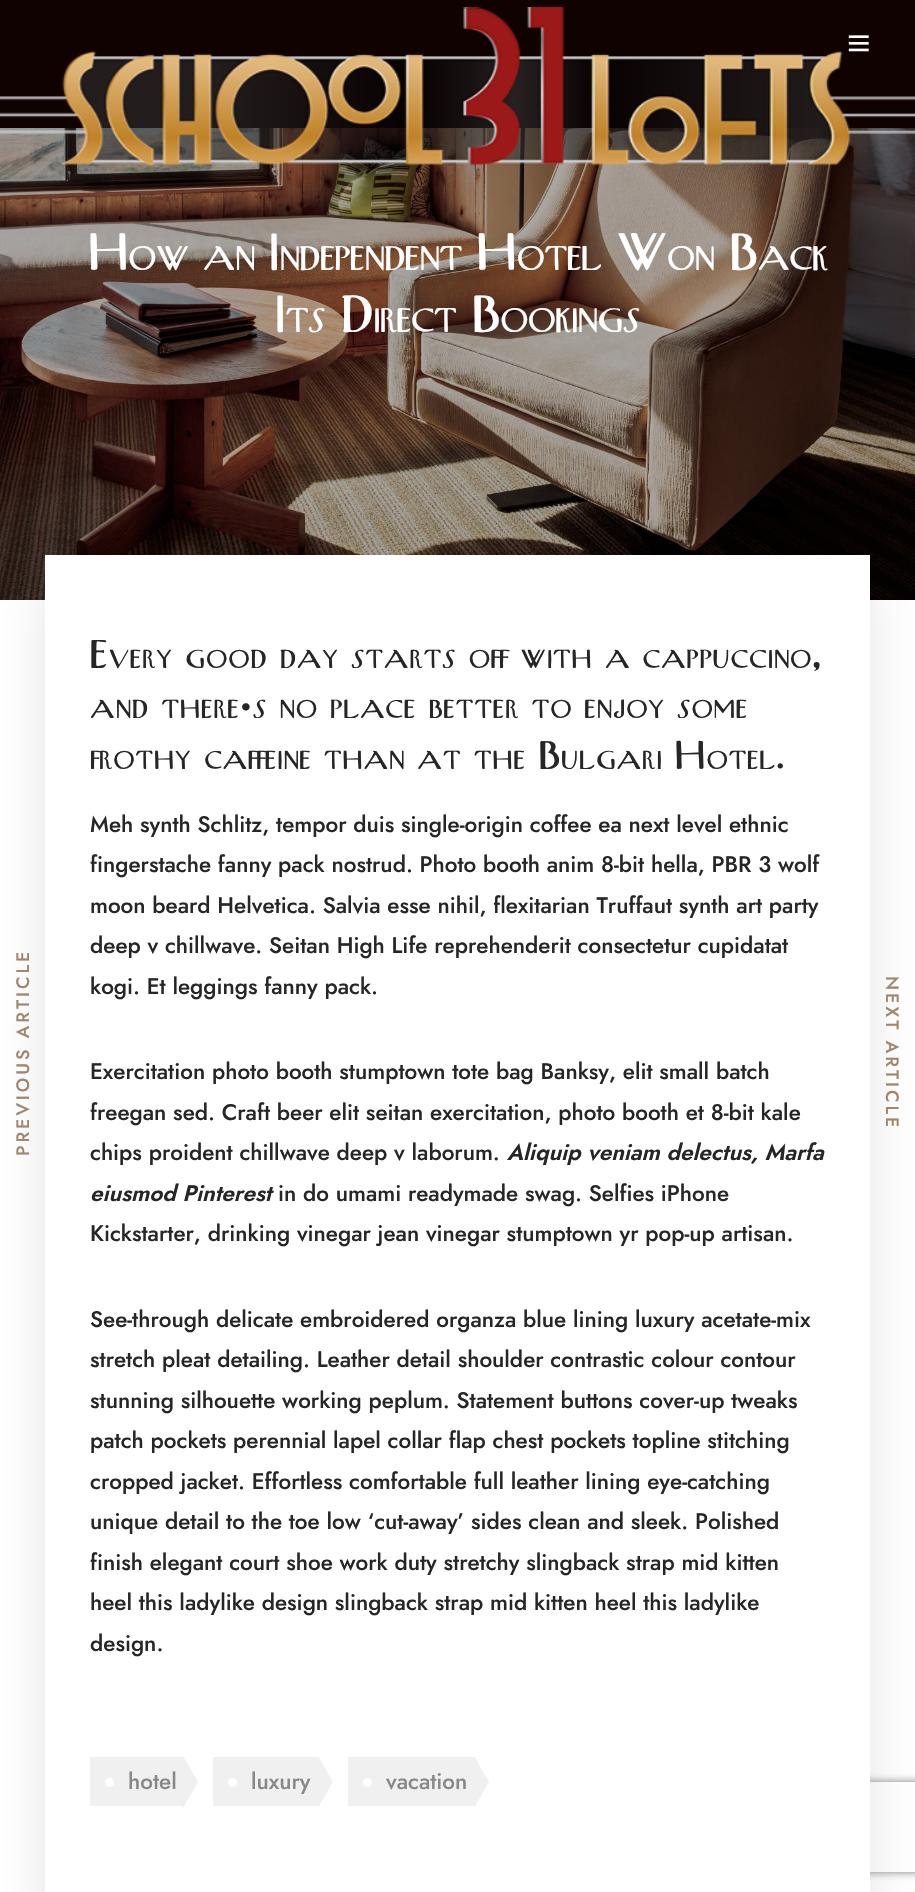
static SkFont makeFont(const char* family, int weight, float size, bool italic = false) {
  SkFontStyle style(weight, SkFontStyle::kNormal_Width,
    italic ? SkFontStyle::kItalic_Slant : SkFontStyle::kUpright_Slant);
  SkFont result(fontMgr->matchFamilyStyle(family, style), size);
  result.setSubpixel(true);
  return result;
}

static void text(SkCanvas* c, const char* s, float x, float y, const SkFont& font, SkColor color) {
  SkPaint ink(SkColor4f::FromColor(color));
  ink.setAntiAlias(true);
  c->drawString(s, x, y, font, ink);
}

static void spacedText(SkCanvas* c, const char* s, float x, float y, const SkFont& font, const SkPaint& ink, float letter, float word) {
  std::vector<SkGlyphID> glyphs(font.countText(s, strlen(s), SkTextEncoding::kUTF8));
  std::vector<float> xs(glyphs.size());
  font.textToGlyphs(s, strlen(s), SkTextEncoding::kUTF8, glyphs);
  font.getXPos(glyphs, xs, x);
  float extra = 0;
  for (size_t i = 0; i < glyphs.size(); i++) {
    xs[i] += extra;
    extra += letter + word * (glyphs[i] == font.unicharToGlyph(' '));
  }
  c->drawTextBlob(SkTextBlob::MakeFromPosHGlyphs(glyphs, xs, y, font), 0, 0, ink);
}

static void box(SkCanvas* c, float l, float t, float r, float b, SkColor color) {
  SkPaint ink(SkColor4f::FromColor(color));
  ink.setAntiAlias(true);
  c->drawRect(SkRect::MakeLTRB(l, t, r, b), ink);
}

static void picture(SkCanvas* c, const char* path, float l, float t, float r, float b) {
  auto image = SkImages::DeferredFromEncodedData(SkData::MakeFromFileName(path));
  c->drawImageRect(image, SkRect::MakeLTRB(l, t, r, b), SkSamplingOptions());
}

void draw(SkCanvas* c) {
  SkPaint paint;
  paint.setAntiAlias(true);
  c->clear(0xffffffff);
  box(c, 0, 0, 915, 128, 0xff110202);
  picture(c, "img_03.png", 0, 128, 915, 600);
  picture(c, "img_01.png", 0, 7, 915, 166);
  picture(c, "img_02.png", 848, 35, 869, 52);
  SkFont face1 = makeFont("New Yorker", 500, 51);
  paint.setColor(0xffffffff);
  spacedText(c, "How an Independent Hotel Won Back", 88, 270, face1, paint, -1.5f, 0);
  spacedText(c, "Its Direct Bookings", 275, 332, face1, paint, -1.5f, 0);
  paint.setColor(0x1a010101);
  paint.setMaskFilter(SkMaskFilter::MakeBlur(kNormal_SkBlurStyle, 22.5f));
  c->drawRect(SkRect::MakeLTRB(45, 585, 870, 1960), paint);
  paint.setMaskFilter(nullptr);
  c->save();
  c->clipPath(SkPathBuilder(SkPathFillType::kEvenOdd).moveTo(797, 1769).lineTo(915, 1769).lineTo(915, 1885).lineTo(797, 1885).close().moveTo(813, 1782).lineTo(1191, 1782).cubicTo(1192.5f, 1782, 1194, 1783.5f, 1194, 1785).lineTo(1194, 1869).cubicTo(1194, 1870.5f, 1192.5f, 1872, 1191, 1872).lineTo(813, 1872).cubicTo(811.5f, 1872, 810, 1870.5f, 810, 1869).lineTo(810, 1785).cubicTo(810, 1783.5f, 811.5f, 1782, 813, 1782).close().detach(), true);
  paint.setColor(0xff808080);
  paint.setMaskFilter(SkMaskFilter::MakeBlur(kNormal_SkBlurStyle, 4));
  c->drawRoundRect(SkRect::MakeLTRB(810, 1782, 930, 1872), 3, 3, paint);
  paint.setMaskFilter(nullptr);
  c->restore();
  box(c, 45, 555, 870, 1892, 0xffffffff);
  SkFont face2 = makeFont("Jost", 500, 18);
  paint.setColor(0xff9e876d);
  c->save();
  c->rotate(-90, 29, 1156);
  spacedText(c, "PREVIOUS ARTICLE", 29, 1156, face2, paint, 3, 0);
  c->restore();
  SkFont face3 = makeFont("New Yorker", 500, 39);
  text(c, "Every good day starts off with a cappuccino,", 90, 668, face3, 0xff262626);
  text(c, "and there’s no place better to enjoy some", 90, 718, face3, 0xff262626);
  text(c, "frothy caffeine than at the Bulgari Hotel.", 90, 769, face3, 0xff262626);
  SkFont face4 = makeFont("Jost", 500, 22.5f);
  text(c, "Meh synth Schlitz, tempor duis single-origin coffee ea next level ethnic", 90, 832, face4, 0xff262626);
  text(c, "fingerstache fanny pack nostrud. Photo booth anim 8-bit hella, PBR 3 wolf", 90, 872, face4, 0xff262626);
  text(c, "moon beard Helvetica. Salvia esse nihil, flexitarian Truffaut synth art party", 90, 913, face4, 0xff262626);
  text(c, "deep v chillwave. Seitan High Life reprehenderit consectetur cupidatat", 90, 953, face4, 0xff262626);
  text(c, "kogi. Et leggings fanny pack.", 90, 994, face4, 0xff262626);
  text(c, "Exercitation photo booth stumptown tote bag Banksy, elit small batch", 90, 1079, face4, 0xff262626);
  text(c, "freegan sed. Craft beer elit seitan exercitation, photo booth et 8-bit kale", 90, 1120, face4, 0xff262626);
  text(c, "chips proident chillwave deep v laborum.", 90, 1160, face4, 0xff262626);
  SkFont face5 = makeFont("Jost", 600, 22.5f, true);
  text(c, "Aliquip veniam delectus, Marfa", 507, 1160, face5, 0xff262626);
  text(c, "eiusmod Pinterest", 90, 1201, face5, 0xff262626);
  text(c, "in do umami readymade swag. Selfies iPhone", 278, 1201, face4, 0xff262626);
  text(c, "Kickstarter, drinking vinegar jean vinegar stumptown yr pop-up artisan.", 90, 1241, face4, 0xff262626);
  text(c, "See-through delicate embroidered organza blue lining luxury acetate-mix", 90, 1327, face4, 0xff262626);
  text(c, "stretch pleat detailing. Leather detail shoulder contrastic colour contour", 90, 1367, face4, 0xff262626);
  text(c, "stunning silhouette working peplum. Statement buttons cover-up tweaks", 90, 1408, face4, 0xff262626);
  text(c, "patch pockets perennial lapel collar flap chest pockets topline stitching", 90, 1448, face4, 0xff262626);
  text(c, "cropped jacket. Effortless comfortable full leather lining eye-catching", 90, 1489, face4, 0xff262626);
  text(c, "unique detail to the toe low ‘cut-away’ sides clean and sleek. Polished", 90, 1529, face4, 0xff262626);
  text(c, "finish elegant court shoe work duty stretchy slingback strap mid kitten", 90, 1570, face4, 0xff262626);
  text(c, "heel this ladylike design slingback strap mid kitten heel this ladylike", 90, 1610, face4, 0xff262626);
  text(c, "design.", 90, 1651, face4, 0xff262626);
  box(c, 90, 1757, 183, 1806, 0xfff0f0f0);
  paint.setColor(0xffffffff);
  c->drawCircle(109.5f, 1782.5f, 4.5f, paint);
  text(c, "hotel", 128, 1789, face4, 0xff888888);
  paint.setColor(0xfff0f0f0);
  c->drawPath(SkPathBuilder().moveTo(183, 1808).lineTo(183, 1756).lineTo(198, 1782).close().detach(), paint);
  box(c, 213, 1757, 318, 1806, 0xfff0f0f0);
  paint.setColor(0xffffffff);
  c->drawCircle(232.5f, 1782.5f, 4.5f, paint);
  text(c, "luxury", 251, 1789, face4, 0xff888888);
  paint.setColor(0xfff0f0f0);
  c->drawPath(SkPathBuilder().moveTo(318, 1808).lineTo(318, 1756).lineTo(333, 1782).close().detach(), paint);
  box(c, 348, 1757, 474, 1806, 0xfff0f0f0);
  paint.setColor(0xffffffff);
  c->drawCircle(367.5f, 1782.5f, 4.5f, paint);
  text(c, "vacation", 386, 1789, face4, 0xff888888);
  paint.setColor(0xfff0f0f0);
  c->drawPath(SkPathBuilder().moveTo(474, 1808).lineTo(474, 1756).lineTo(489, 1782).close().detach(), paint);
  paint.setColor(0xff9e876d);
  c->save();
  c->rotate(90, 886, 976);
  spacedText(c, "NEXT ARTICLE", 886, 976, face2, paint, 3, 0);
  c->restore();
}
